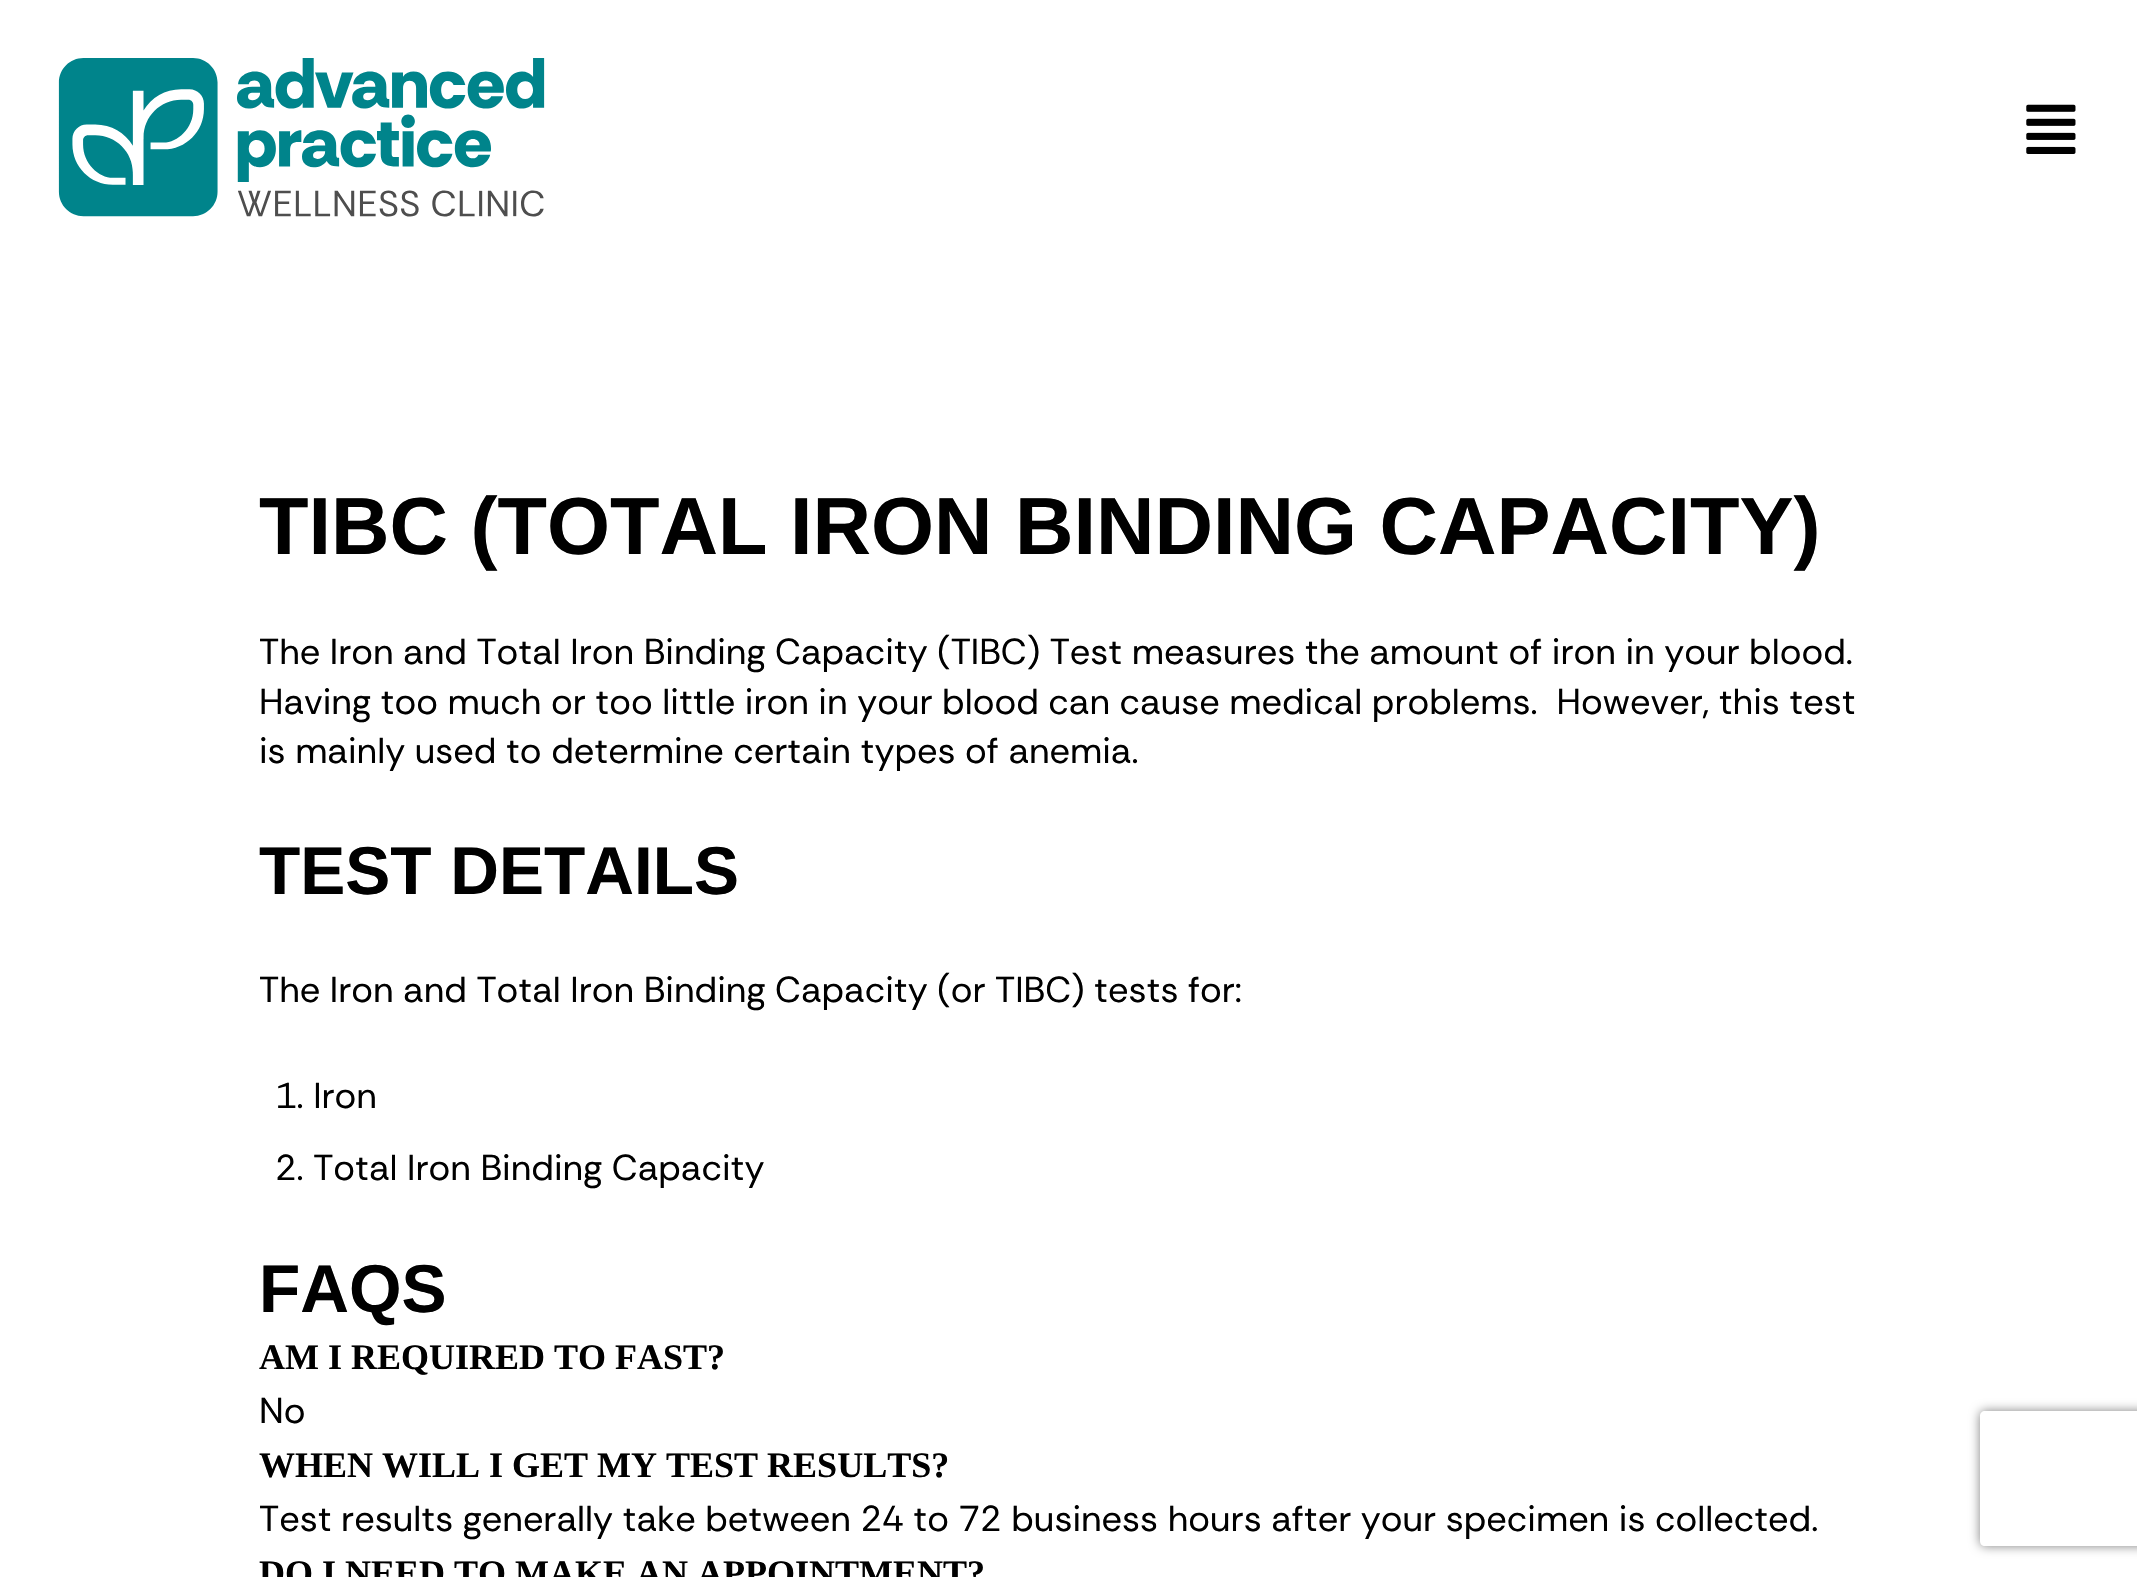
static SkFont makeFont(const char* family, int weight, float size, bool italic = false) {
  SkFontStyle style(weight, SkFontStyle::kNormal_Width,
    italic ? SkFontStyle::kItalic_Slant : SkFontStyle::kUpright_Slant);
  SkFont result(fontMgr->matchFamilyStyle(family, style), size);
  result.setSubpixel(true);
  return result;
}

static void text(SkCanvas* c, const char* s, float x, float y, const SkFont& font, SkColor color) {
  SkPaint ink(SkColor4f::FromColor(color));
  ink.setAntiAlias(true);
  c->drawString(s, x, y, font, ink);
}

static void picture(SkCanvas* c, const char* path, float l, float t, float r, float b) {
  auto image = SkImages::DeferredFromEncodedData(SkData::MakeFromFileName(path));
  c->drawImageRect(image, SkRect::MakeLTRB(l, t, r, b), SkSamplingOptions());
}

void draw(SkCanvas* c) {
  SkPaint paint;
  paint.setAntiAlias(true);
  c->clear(0xffffffff);
  picture(c, "img_01.png", 58, 58, 545, 217);
  picture(c, "img_02.png", 2026, 104, 2076, 154);
  SkFont face1 = makeFont("Liberation Sans", 700, 81);
  text(c, "TIBC (TOTAL IRON BINDING CAPACITY)", 259, 554, face1, 0xff000000);
  SkFont face2 = makeFont("Rethink Sans", 100, 36);
  text(c, "The Iron and Total Iron Binding Capacity (TIBC) Test measures the amount of iron in your blood.", 259, 664, face2, 0xff000000);
  text(c, "Having too much or too little iron in your blood can cause medical problems.  However, this test", 259, 714, face2, 0xff000000);
  text(c, "is mainly used to determine certain types of anemia.", 259, 763, face2, 0xff000000);
  SkFont face3 = makeFont("Liberation Sans", 700, 67.5f);
  text(c, "TEST DETAILS", 259, 894, face3, 0xff000000);
  text(c, "The Iron and Total Iron Binding Capacity (or TIBC) tests for:", 259, 1002, face2, 0xff000000);
  text(c, "1. Iron", 275, 1108, face2, 0xff000000);
  text(c, "2. Total Iron Binding Capacity", 275, 1180, face2, 0xff000000);
  text(c, "FAQS", 259, 1312, face3, 0xff000000);
  SkFont face4 = makeFont("Liberation Serif", 700, 36);
  text(c, "AM I REQUIRED TO FAST?", 259, 1369, face4, 0xff000000);
  text(c, "No", 259, 1423, face2, 0xff000000);
  text(c, "WHEN WILL I GET MY TEST RESULTS?", 259, 1477, face4, 0xff000000);
  text(c, "Test results generally take between 24 to 72 business hours after your specimen is collected.", 259, 1531, face2, 0xff000000);
  text(c, "DO I NEED TO MAKE AN APPOINTMENT?", 259, 1585, face4, 0xff000000);
  c->save();
  c->clipPath(SkPathBuilder(SkPathFillType::kEvenOdd).moveTo(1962, 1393).lineTo(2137, 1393).lineTo(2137, 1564).lineTo(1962, 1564).close().moveTo(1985, 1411).lineTo(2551, 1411).cubicTo(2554, 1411, 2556, 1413, 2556, 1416).lineTo(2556, 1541).cubicTo(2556, 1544, 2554, 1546, 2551, 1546).lineTo(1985, 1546).cubicTo(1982, 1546, 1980, 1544, 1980, 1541).lineTo(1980, 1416).cubicTo(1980, 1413, 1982, 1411, 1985, 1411).close().detach(), true);
  paint.setColor(0xff808080);
  paint.setMaskFilter(SkMaskFilter::MakeBlur(kNormal_SkBlurStyle, 5.5f));
  c->drawRoundRect(SkRect::MakeLTRB(1980, 1411, 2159, 1546), 5, 5, paint);
  paint.setMaskFilter(nullptr);
  c->restore();
}
